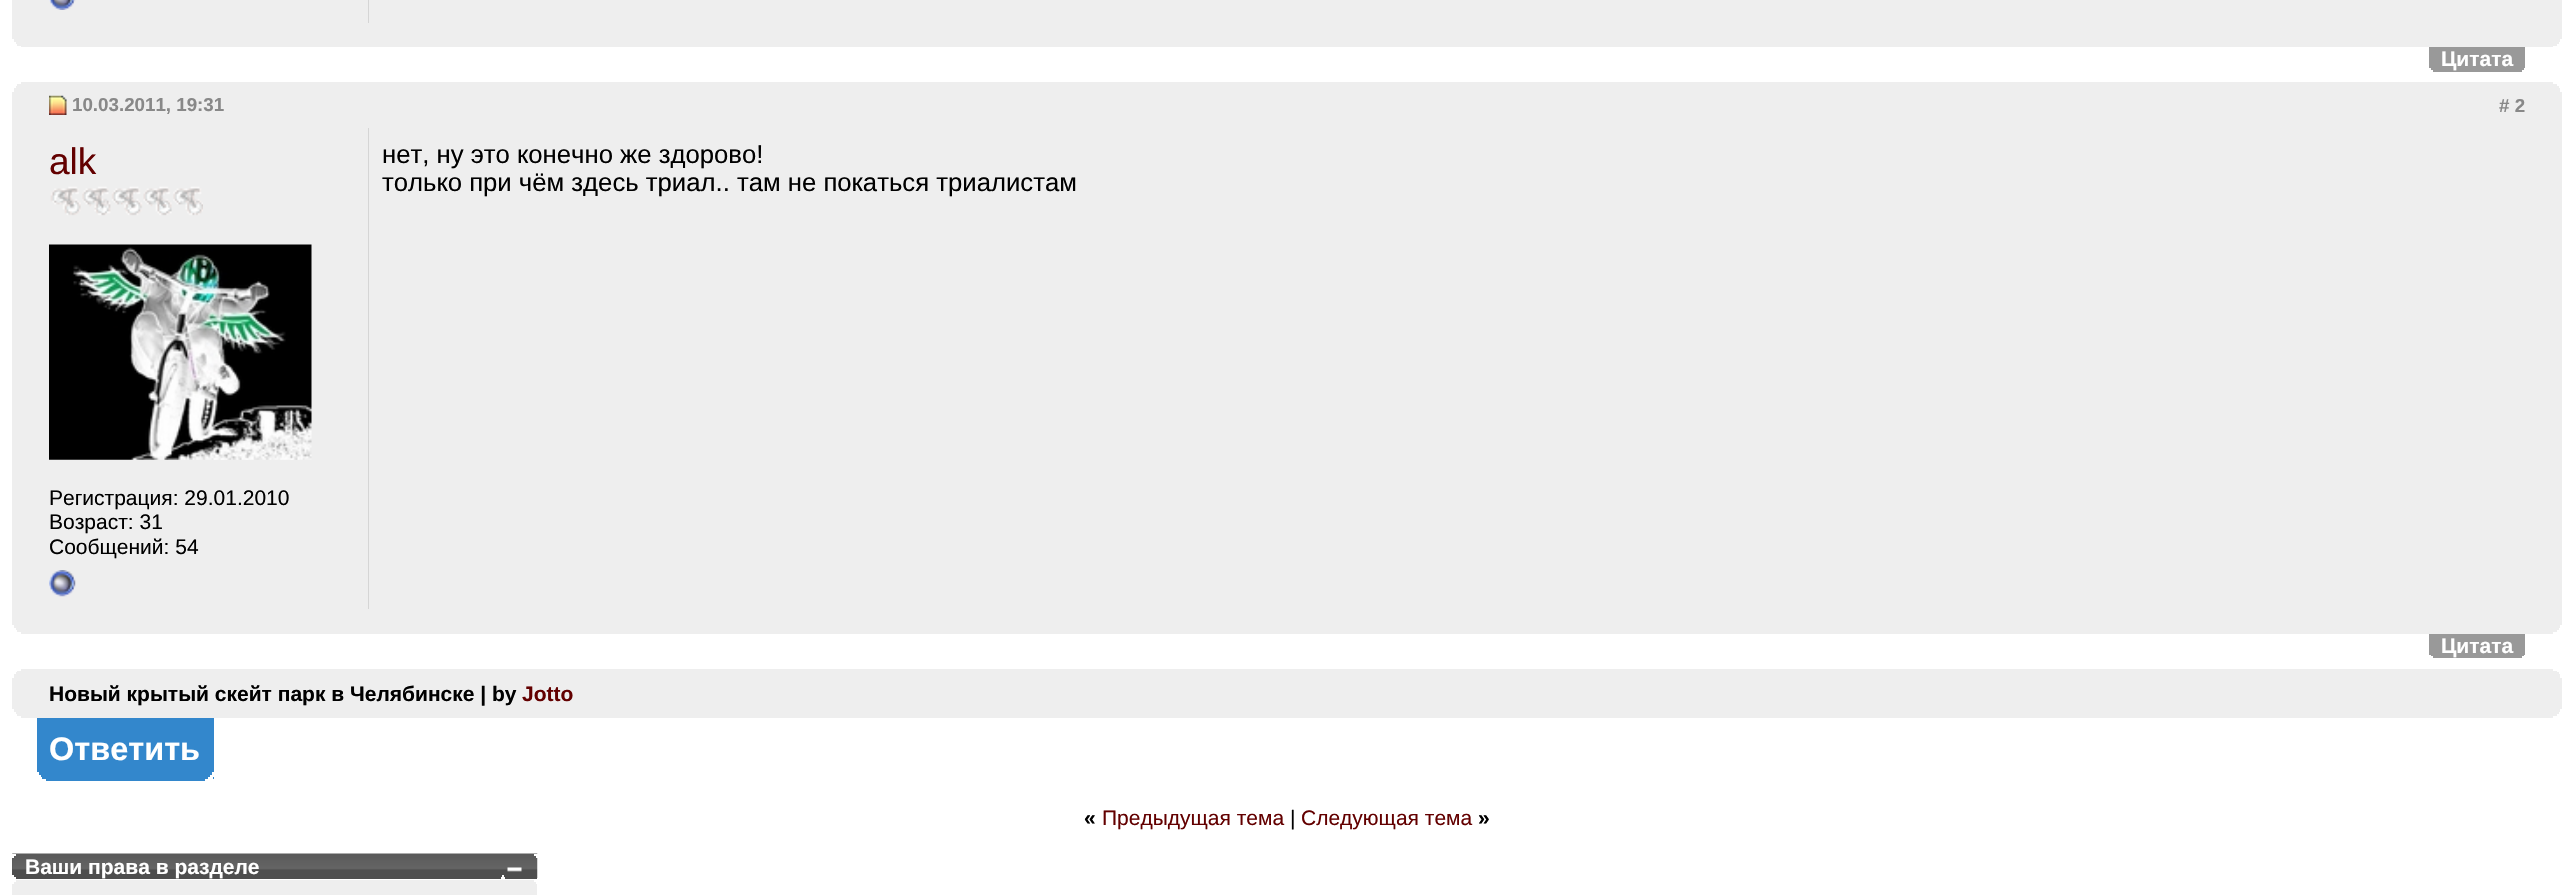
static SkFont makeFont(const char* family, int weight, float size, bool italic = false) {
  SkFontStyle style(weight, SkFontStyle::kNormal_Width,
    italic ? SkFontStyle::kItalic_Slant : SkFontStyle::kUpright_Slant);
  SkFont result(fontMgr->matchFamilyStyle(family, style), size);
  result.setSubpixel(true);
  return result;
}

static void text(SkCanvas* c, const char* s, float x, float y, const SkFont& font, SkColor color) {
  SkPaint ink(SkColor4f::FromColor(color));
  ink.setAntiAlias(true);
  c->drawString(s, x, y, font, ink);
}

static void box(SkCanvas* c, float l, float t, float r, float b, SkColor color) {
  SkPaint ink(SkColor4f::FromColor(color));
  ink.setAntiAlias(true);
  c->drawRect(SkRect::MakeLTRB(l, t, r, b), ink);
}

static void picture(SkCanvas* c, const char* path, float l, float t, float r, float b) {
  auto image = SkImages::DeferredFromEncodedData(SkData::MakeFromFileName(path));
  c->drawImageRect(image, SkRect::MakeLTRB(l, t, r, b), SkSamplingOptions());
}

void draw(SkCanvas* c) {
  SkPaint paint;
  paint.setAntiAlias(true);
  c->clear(0xffffffff);
  box(c, 12, 0, 2562, 47, 0xffeeeeee);
  box(c, 368, 0, 369, 23, 0xffd5d5d5);
  picture(c, "img_01.png", 49, 0, 76, 10);
  box(c, 2560, 39, 2562, 43, 0xffffffff);
  box(c, 12, 39, 14, 43, 0xffffffff);
  box(c, 2559, 42, 2563, 44, 0xffffffff);
  box(c, 12, 42, 16, 44, 0xffffffff);
  box(c, 2557, 44, 2562, 46, 0xffffffff);
  box(c, 12, 44, 17, 46, 0xffffffff);
  box(c, 2553, 46, 2562, 47, 0xffffffff);
  box(c, 12, 46, 21, 47, 0xffffffff);
  box(c, 2429, 47, 2525, 72, 0xff999999);
  SkFont face1 = makeFont("Liberation Sans", 700, 21);
  text(c, "Цитата", 2441, 66, face1, 0xffffffff);
  box(c, 2524, 68, 2526, 70, 0xffffffff);
  box(c, 2429, 68, 2431, 70, 0xffffffff);
  box(c, 2522, 70, 2526, 72, 0xffffffff);
  box(c, 2429, 70, 2433, 72, 0xffffffff);
  box(c, 12, 82, 2562, 634, 0xffeeeeee);
  box(c, 2553, 82, 2562, 84, 0xffffffff);
  box(c, 12, 82, 21, 84, 0xffffffff);
  box(c, 2557, 84, 2562, 86, 0xffffffff);
  box(c, 12, 84, 17, 86, 0xffffffff);
  box(c, 2559, 86, 2563, 88, 0xffffffff);
  box(c, 12, 86, 16, 88, 0xffffffff);
  box(c, 2560, 88, 2562, 92, 0xffffffff);
  box(c, 12, 88, 14, 92, 0xffffffff);
  picture(c, "img_02.png", 49, 95, 67, 115);
  SkFont face2 = makeFont("Liberation Sans", 700, 18.75f);
  text(c, "10.03.2011, 19:31", 72, 111, face2, 0xff888888);
  text(c, "# 2", 2499, 112, face2, 0xff888888);
  box(c, 368, 128, 369, 609, 0xffd5d5d5);
  SkFont face3 = makeFont("Liberation Sans", 400, 37);
  text(c, "alk", 49, 174, face3, 0xff630000);
  picture(c, "img_03.png", 50, 186, 203, 216);
  picture(c, "img_04.png", 49, 244, 312, 460);
  SkFont face4 = makeFont("Liberation Sans", 400, 21);
  text(c, "Регистрация: 29.01.2010", 49, 505, face4, 0xff000000);
  text(c, "Возраст: 31", 49, 529, face4, 0xff000000);
  text(c, "Сообщений: 54", 49, 554, face4, 0xff000000);
  picture(c, "img_05.png", 49, 570, 76, 597);
  SkFont face5 = makeFont("Liberation Sans", 400, 25.7f);
  text(c, "нет, ну это конечно же здорово!", 382, 163, face5, 0xff000000);
  text(c, "только при чём здесь триал.. там не покаться триалистам", 382, 191, face5, 0xff000000);
  box(c, 2560, 625, 2562, 629, 0xffffffff);
  box(c, 12, 625, 14, 629, 0xffffffff);
  box(c, 2559, 628, 2563, 630, 0xffffffff);
  box(c, 12, 628, 16, 630, 0xffffffff);
  box(c, 2557, 630, 2562, 632, 0xffffffff);
  box(c, 12, 630, 17, 632, 0xffffffff);
  box(c, 2553, 632, 2562, 634, 0xffffffff);
  box(c, 12, 632, 21, 634, 0xffffffff);
  box(c, 2429, 634, 2525, 658, 0xff999999);
  text(c, "Цитата", 2441, 653, face1, 0xffffffff);
  box(c, 2524, 655, 2526, 656, 0xffffffff);
  box(c, 2429, 655, 2431, 656, 0xffffffff);
  box(c, 2522, 656, 2526, 658, 0xffffffff);
  box(c, 2429, 656, 2433, 658, 0xffffffff);
  box(c, 12, 669, 2562, 718, 0xffeeeeee);
  box(c, 2553, 669, 2562, 671, 0xffffffff);
  box(c, 12, 669, 21, 671, 0xffffffff);
  box(c, 2557, 671, 2562, 672, 0xffffffff);
  box(c, 12, 671, 17, 672, 0xffffffff);
  box(c, 2559, 672, 2563, 674, 0xffffffff);
  box(c, 12, 672, 16, 674, 0xffffffff);
  box(c, 2560, 674, 2562, 678, 0xffffffff);
  box(c, 12, 674, 14, 678, 0xffffffff);
  text(c, "Новый крытый скейт парк в Челябинске | by", 49, 701, face1, 0xff000000);
  text(c, "Jotto", 522, 701, face1, 0xff630000);
  box(c, 2560, 709, 2562, 713, 0xffffffff);
  box(c, 12, 709, 14, 713, 0xffffffff);
  box(c, 2559, 712, 2563, 714, 0xffffffff);
  box(c, 12, 712, 16, 714, 0xffffffff);
  box(c, 2557, 714, 2562, 716, 0xffffffff);
  box(c, 12, 714, 17, 716, 0xffffffff);
  box(c, 2553, 716, 2562, 718, 0xffffffff);
  box(c, 12, 716, 21, 718, 0xffffffff);
  box(c, 37, 718, 214, 781, 0xff3387cc);
  SkFont face6 = makeFont("Liberation Sans", 700, 32.5f);
  text(c, "Ответить", 49, 760, face6, 0xffffffff);
  box(c, 212, 772, 214, 776, 0xffffffff);
  box(c, 37, 772, 39, 776, 0xffffffff);
  box(c, 210, 775, 214, 777, 0xffffffff);
  box(c, 37, 775, 41, 777, 0xffffffff);
  box(c, 208, 777, 213, 779, 0xffffffff);
  box(c, 37, 777, 42, 779, 0xffffffff);
  box(c, 205, 779, 214, 781, 0xffffffff);
  box(c, 37, 779, 46, 781, 0xffffffff);
  text(c, "«", 1084, 825, face1, 0xff000000);
  text(c, "Предыдущая тема", 1102, 825, face4, 0xff630000);
  text(c, "|", 1290, 825, face4, 0xff000000);
  text(c, "Следующая тема", 1301, 825, face4, 0xff630000);
  text(c, "»", 1478, 825, face1, 0xff000000);
  box(c, 12, 858, 537, 879, 0xff4e4e4e);
  picture(c, "img_06.png", 12, 853, 538, 878);
  box(c, 534, 854, 538, 856, 0xffffffff);
  box(c, 12, 854, 16, 856, 0xffffffff);
  box(c, 536, 856, 538, 858, 0xffffffff);
  box(c, 12, 856, 14, 858, 0xffffffff);
  text(c, "Ваши права в разделе", 25, 874, face1, 0xffffffff);
  picture(c, "img_07.png", 507, 867, 522, 872);
  box(c, 502, 875, 504, 877, 0xffffffff);
  box(c, 12, 875, 14, 877, 0xffffffff);
  box(c, 501, 877, 505, 879, 0xffffffff);
  box(c, 12, 877, 16, 879, 0xffffffff);
  box(c, 12, 880, 537, 895, 0xffeeeeee);
  box(c, 534, 880, 538, 882, 0xffffffff);
  box(c, 12, 880, 16, 882, 0xffffffff);
  box(c, 536, 882, 538, 884, 0xffffffff);
  box(c, 12, 882, 14, 884, 0xffffffff);
}
